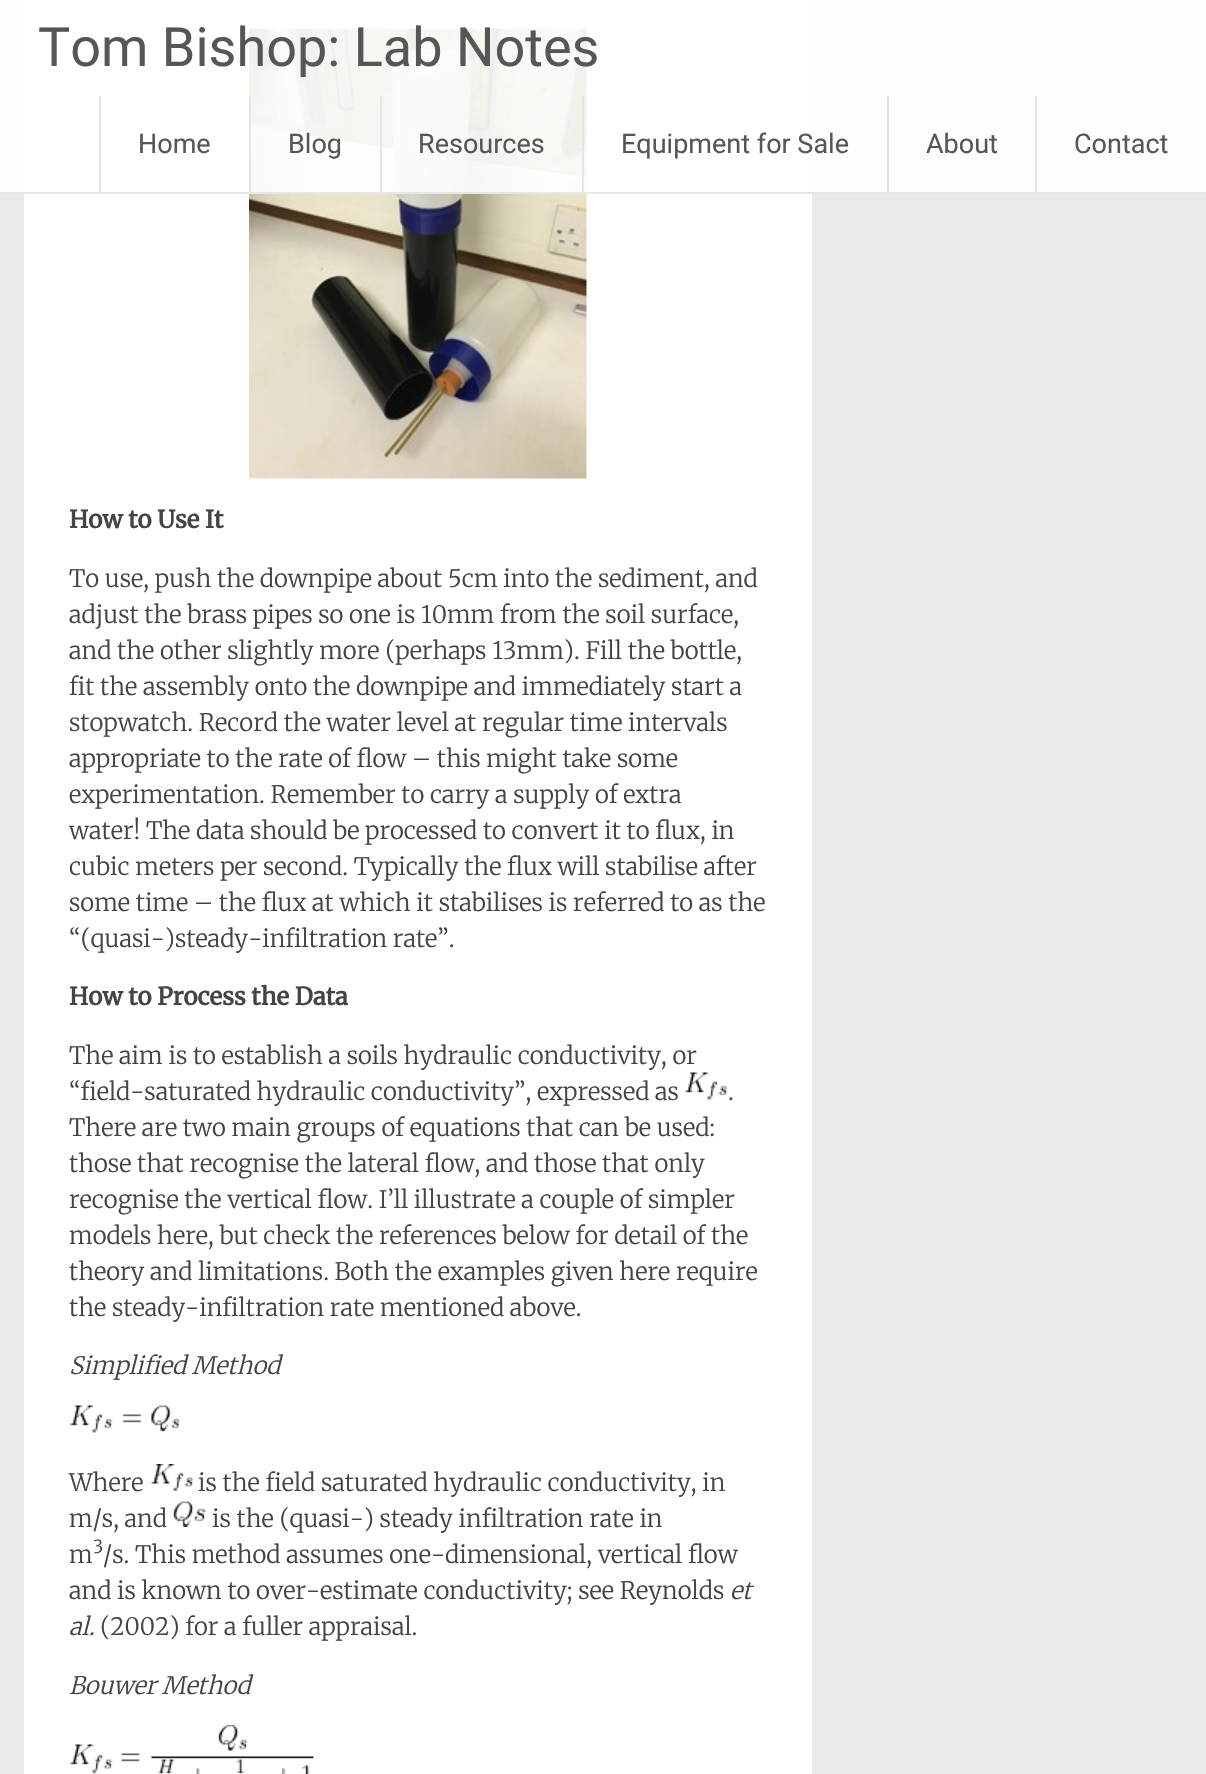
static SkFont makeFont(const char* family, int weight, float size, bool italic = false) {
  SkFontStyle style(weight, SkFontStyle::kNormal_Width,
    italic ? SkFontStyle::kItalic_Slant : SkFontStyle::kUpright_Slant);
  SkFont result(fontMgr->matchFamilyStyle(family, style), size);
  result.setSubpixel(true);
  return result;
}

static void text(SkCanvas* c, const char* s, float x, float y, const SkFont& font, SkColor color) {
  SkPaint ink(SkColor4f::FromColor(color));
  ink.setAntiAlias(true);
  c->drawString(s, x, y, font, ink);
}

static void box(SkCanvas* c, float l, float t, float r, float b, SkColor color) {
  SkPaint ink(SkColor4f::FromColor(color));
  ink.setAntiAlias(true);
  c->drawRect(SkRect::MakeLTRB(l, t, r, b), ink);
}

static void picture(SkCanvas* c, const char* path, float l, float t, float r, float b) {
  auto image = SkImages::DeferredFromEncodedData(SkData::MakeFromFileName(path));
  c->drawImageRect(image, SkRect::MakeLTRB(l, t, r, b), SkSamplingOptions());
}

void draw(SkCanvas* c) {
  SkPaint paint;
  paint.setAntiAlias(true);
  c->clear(0xffeaeaea);
  box(c, 24, 0, 812, 1774, 0xffffffff);
  picture(c, "img_01.png", 249, 28, 587, 479);
  box(c, 0, 0, 1206, 194, 0xe6ffffff);
  box(c, 0, 192, 1206, 194, 0xe6e1e4e6);
  SkFont face1 = makeFont("Roboto", 400, 54);
  text(c, "Tom Bishop: Lab Notes", 38, 66, face1, 0xff565656);
  box(c, 99, 96, 101, 192, 0xffe4e7e9);
  SkFont face2 = makeFont("Roboto", 400, 27);
  text(c, "Home", 138, 153, face2, 0xff565656);
  box(c, 249, 96, 251, 192, 0xe6e1e4e6);
  text(c, "Blog", 288, 153, face2, 0xff565656);
  box(c, 380, 96, 382, 192, 0xe6e1e4e6);
  text(c, "Resources", 418, 153, face2, 0xff565656);
  box(c, 582, 96, 584, 192, 0xe6e1e4e6);
  text(c, "Equipment for Sale", 621, 153, face2, 0xff565656);
  box(c, 887, 96, 889, 192, 0xffe2e5e6);
  text(c, "About", 926, 153, face2, 0xff565656);
  box(c, 1035, 96, 1037, 192, 0xffe2e5e6);
  text(c, "Contact", 1074, 153, face2, 0xff565656);
  SkFont face3 = makeFont("Merriweather", 700, 24);
  text(c, "How to Use It", 69, 528, face3, 0xff444444);
  SkFont face4 = makeFont("Merriweather", 300, 24);
  text(c, "To use, push the downpipe about 5cm into the sediment, and", 69, 587, face4, 0xff444444);
  text(c, "adjust the brass pipes so one is 10mm from the soil surface,", 69, 623, face4, 0xff444444);
  text(c, "and the other slightly more (perhaps 13mm). Fill the bottle,", 69, 659, face4, 0xff444444);
  text(c, "fit the assembly onto the downpipe and immediately start a", 69, 695, face4, 0xff444444);
  text(c, "stopwatch. Record the water level at regular time intervals", 69, 731, face4, 0xff444444);
  text(c, "appropriate to the rate of flow – this might take some", 69, 767, face4, 0xff444444);
  text(c, "experimentation. Remember to carry a supply of extra", 69, 803, face4, 0xff444444);
  text(c, "water! The data should be processed to convert it to flux, in", 69, 839, face4, 0xff444444);
  text(c, "cubic meters per second. Typically the flux will stabilise after", 69, 875, face4, 0xff444444);
  text(c, "some time – the flux at which it stabilises is referred to as the", 69, 911, face4, 0xff444444);
  text(c, "“(quasi-)steady-infiltration rate”.", 69, 947, face4, 0xff444444);
  text(c, "How to Process the Data", 69, 1005, face3, 0xff444444);
  text(c, "The aim is to establish a soils hydraulic conductivity, or", 69, 1064, face4, 0xff444444);
  text(c, "“field-saturated hydraulic conductivity”, expressed as", 69, 1100, face4, 0xff444444);
  picture(c, "img_02.png", 685, 1072, 728, 1100);
  text(c, ".", 728, 1100, face4, 0xff444444);
  text(c, "There are two main groups of equations that can be used:", 69, 1136, face4, 0xff444444);
  text(c, "those that recognise the lateral flow, and those that only", 69, 1172, face4, 0xff444444);
  text(c, "recognise the vertical flow. I’ll illustrate a couple of simpler", 69, 1208, face4, 0xff444444);
  text(c, "models here, but check the references below for detail of the", 69, 1244, face4, 0xff444444);
  text(c, "theory and limitations. Both the examples given here require", 69, 1280, face4, 0xff444444);
  text(c, "the steady-infiltration rate mentioned above.", 69, 1316, face4, 0xff444444);
  SkFont face5 = makeFont("Merriweather", 300, 24, true);
  text(c, "Simplified Method", 69, 1374, face5, 0xff444444);
  picture(c, "img_03.png", 70, 1405, 180, 1433);
  text(c, "Where", 69, 1491, face4, 0xff444444);
  picture(c, "img_04.png", 151, 1464, 194, 1491);
  text(c, "is the field saturated hydraulic conductivity, in", 198, 1491, face4, 0xff444444);
  text(c, "m/s, and", 69, 1527, face4, 0xff444444);
  picture(c, "img_05.png", 172, 1501, 206, 1527);
  text(c, "is the (quasi-) steady infiltration rate in", 212, 1527, face4, 0xff444444);
  text(c, "m", 69, 1563, face4, 0xff444444);
  SkFont face6 = makeFont("Merriweather", 300, 18);
  text(c, "3", 93, 1553, face6, 0xff444444);
  text(c, "/s. This method assumes one-dimensional, vertical flow", 103, 1563, face4, 0xff444444);
  text(c, "and is known to over-estimate conductivity; see Reynolds", 69, 1599, face4, 0xff444444);
  text(c, "et", 730, 1599, face5, 0xff444444);
  text(c, "al.", 69, 1635, face5, 0xff444444);
  text(c, "(2002) for a fuller appraisal.", 100, 1635, face4, 0xff444444);
  text(c, "Bouwer Method", 69, 1694, face5, 0xff444444);
  picture(c, "img_06.png", 70, 1725, 314, 1774);
}
